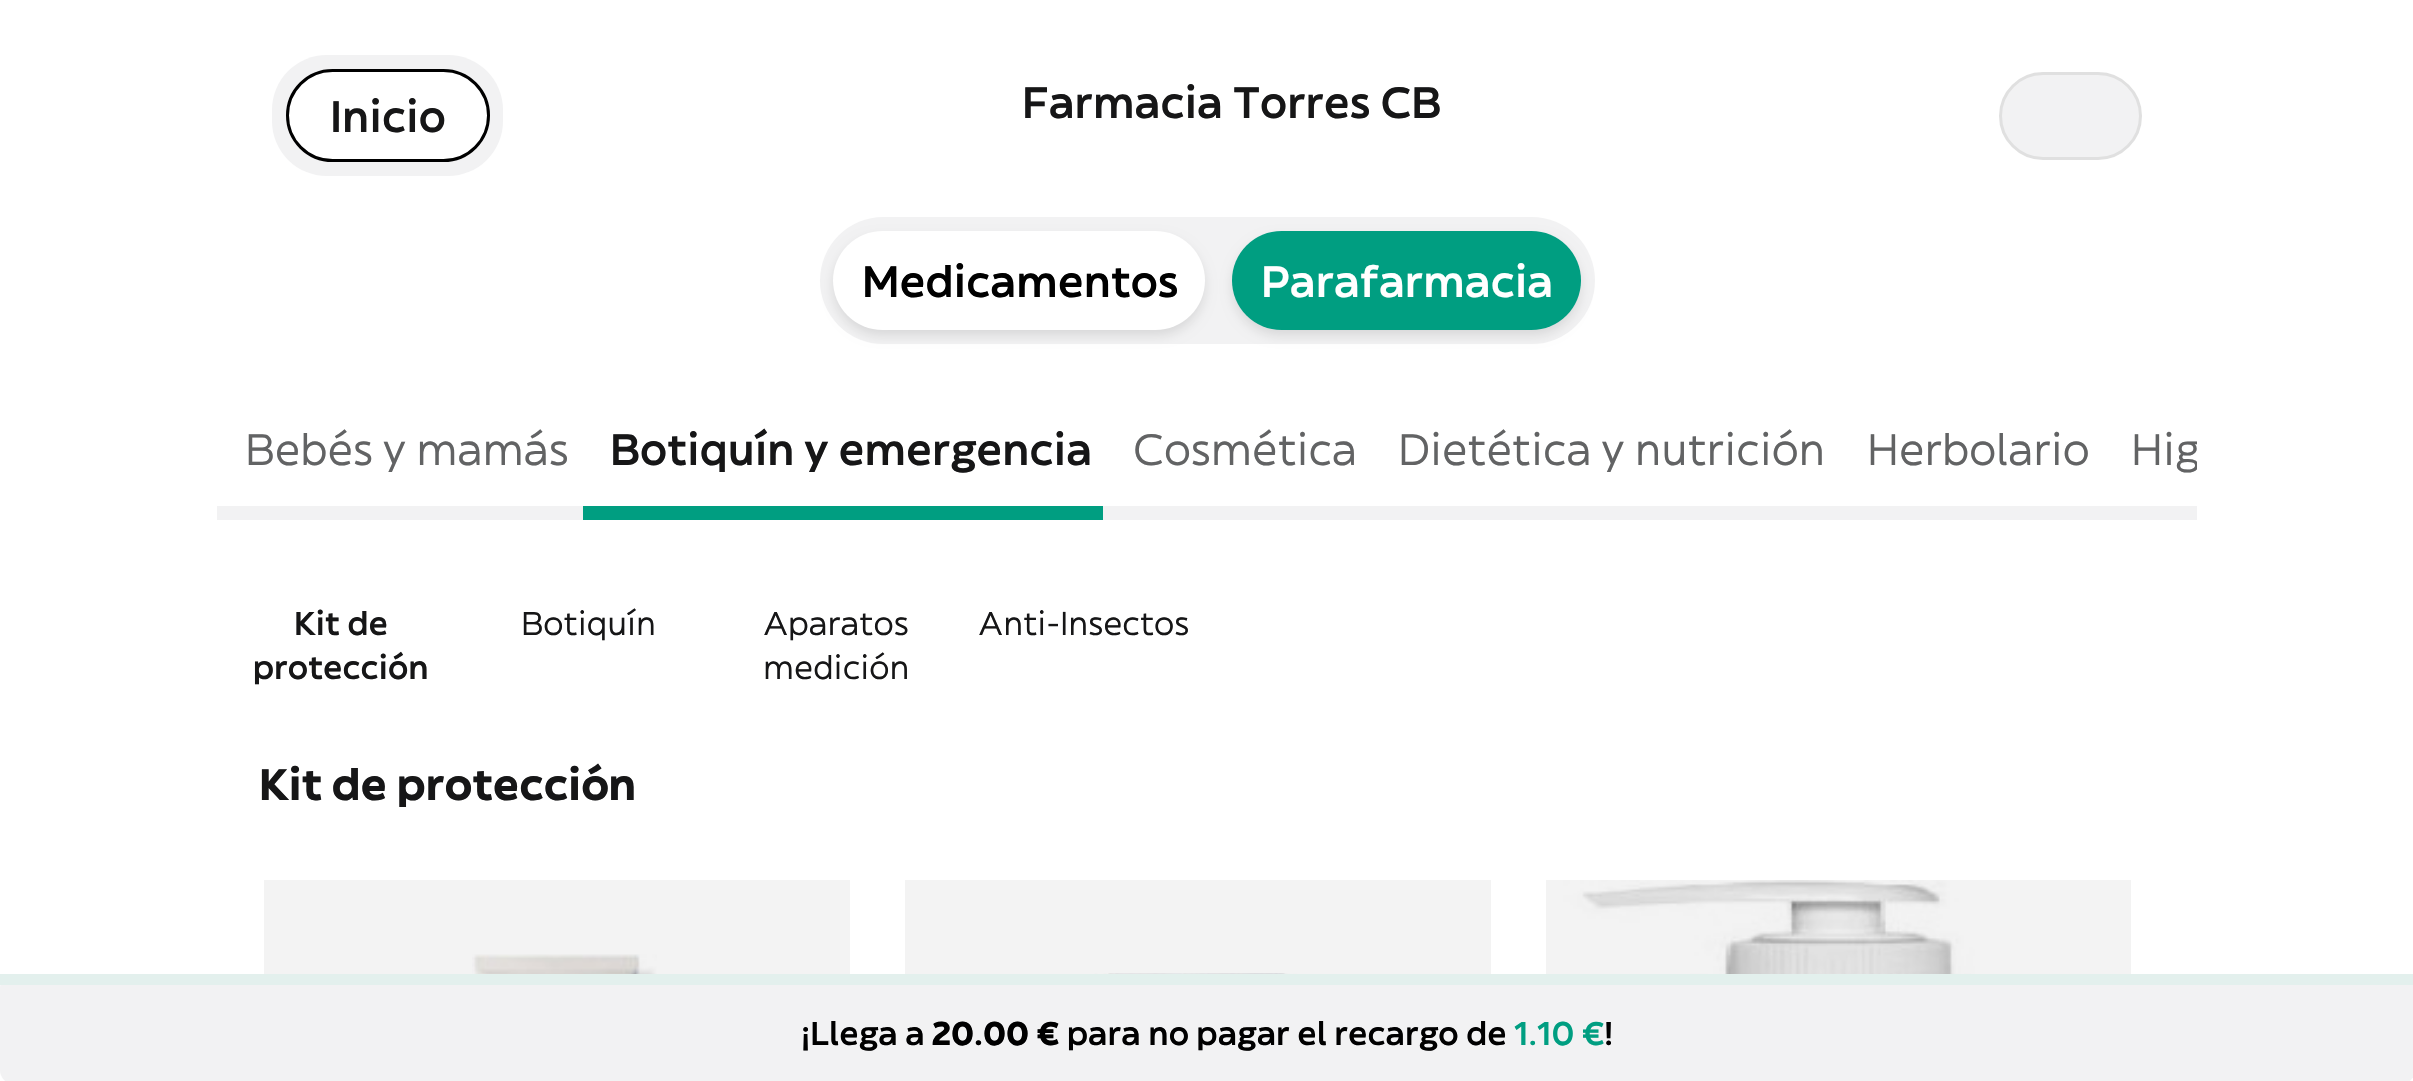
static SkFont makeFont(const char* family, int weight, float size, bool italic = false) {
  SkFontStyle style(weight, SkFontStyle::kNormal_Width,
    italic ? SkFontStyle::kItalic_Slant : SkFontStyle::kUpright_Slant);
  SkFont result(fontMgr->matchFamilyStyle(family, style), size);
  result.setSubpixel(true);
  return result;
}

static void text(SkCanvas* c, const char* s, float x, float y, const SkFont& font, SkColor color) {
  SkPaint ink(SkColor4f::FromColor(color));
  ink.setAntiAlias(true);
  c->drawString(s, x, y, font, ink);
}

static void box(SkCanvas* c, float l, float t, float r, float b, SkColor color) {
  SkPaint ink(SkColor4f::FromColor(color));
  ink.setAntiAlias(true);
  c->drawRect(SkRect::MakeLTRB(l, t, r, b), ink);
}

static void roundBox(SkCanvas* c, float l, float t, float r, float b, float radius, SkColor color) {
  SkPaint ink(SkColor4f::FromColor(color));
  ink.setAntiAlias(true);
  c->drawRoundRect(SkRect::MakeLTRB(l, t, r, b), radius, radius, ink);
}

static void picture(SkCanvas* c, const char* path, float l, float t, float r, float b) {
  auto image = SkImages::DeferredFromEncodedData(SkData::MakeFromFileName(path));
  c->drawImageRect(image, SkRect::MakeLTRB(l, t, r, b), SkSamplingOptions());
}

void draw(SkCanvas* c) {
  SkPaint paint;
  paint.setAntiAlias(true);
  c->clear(0xffffffff);
  roundBox(c, 272, 55, 503, 176, 55, 0xfff2f2f3);
  paint.setColor(0xffffffff);
  c->drawRoundRect(SkRect::MakeLTRB(287.5f, 70.5f, 488.5f, 160.5f), 45, 45, paint);
  paint.setStyle(SkPaint::kStroke_Style);
  paint.setStrokeWidth(3);
  paint.setColor(0xff000000);
  c->drawRoundRect(SkRect::MakeLTRB(287.5f, 70.5f, 488.5f, 160.5f), 45, 45, paint);
  SkFont face1 = makeFont("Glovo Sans", 500, 44);
  text(c, "Inicio", 330, 132, face1, 0xff161617);
  text(c, "Farmacia Torres CB", 1022, 118, face1, 0xff161617);
  paint.setStyle(SkPaint::kFill_Style);
  paint.setColor(0xfff2f2f3);
  c->drawRoundRect(SkRect::MakeLTRB(2000.5f, 73.5f, 2140.5f, 158.5f), 42.5f, 42.5f, paint);
  paint.setStyle(SkPaint::kStroke_Style);
  paint.setColor(0xffe0e0e0);
  c->drawRoundRect(SkRect::MakeLTRB(2000.5f, 73.5f, 2140.5f, 158.5f), 42.5f, 42.5f, paint);
  roundBox(c, 820, 217, 1595, 344, 63.5f, 0xfff2f2f3);
  paint.setStyle(SkPaint::kFill_Style);
  paint.setColor(0x1a000000);
  paint.setMaskFilter(SkMaskFilter::MakeBlur(kNormal_SkBlurStyle, 5.5f));
  c->drawRoundRect(SkRect::MakeLTRB(833, 237, 1205, 336), 49.5f, 49.5f, paint);
  paint.setMaskFilter(nullptr);
  roundBox(c, 833, 231, 1205, 330, 49.5f, 0xffffffff);
  text(c, "Medicamentos", 862, 297, face1, 0xff000000);
  paint.setMaskFilter(SkMaskFilter::MakeBlur(kNormal_SkBlurStyle, 5.5f));
  c->drawRoundRect(SkRect::MakeLTRB(1232, 237, 1581, 336), 49.5f, 49.5f, paint);
  paint.setMaskFilter(nullptr);
  roundBox(c, 1232, 231, 1581, 330, 49.5f, 0xff009e81);
  text(c, "Parafarmacia", 1261, 297, face1, 0xffffffff);
  SkFont face2 = makeFont("Glovo Sans", 400, 44);
  text(c, "Bebés y mamás", 245, 465, face2, 0xff626364);
  box(c, 217, 506, 2197, 520, 0xfff2f2f3);
  box(c, 583, 506, 1103, 520, 0xff009e81);
  text(c, "Botiquín y emergencia", 610, 465, face1, 0xff161617);
  text(c, "Cosmética", 1133, 465, face2, 0xff626364);
  text(c, "Dietética y nutrición", 1398, 465, face2, 0xff626364);
  text(c, "Herbolario", 1867, 465, face2, 0xff626364);
  c->save();
  c->clipRect(SkRect::MakeLTRB(217, 413, 2197, 520));
  text(c, "Hig", 2131, 465, face2, 0xff626364);
  c->restore();
  SkFont face3 = makeFont("Glovo Sans", 500, 33);
  text(c, "Kit de", 294, 635, face3, 0xff161617);
  text(c, "protección", 253, 679, face3, 0xff161617);
  SkFont face4 = makeFont("Glovo Sans", 400, 33);
  text(c, "Botiquín", 521, 635, face4, 0xff161617);
  text(c, "Aparatos", 763, 635, face4, 0xff161617);
  text(c, "medición", 763, 679, face4, 0xff161617);
  text(c, "Anti-Insectos", 978, 635, face4, 0xff161617);
  SkFont face5 = makeFont("Glovo Sans", 700, 44);
  text(c, "Kit de protección", 259, 800, face5, 0xff161617);
  picture(c, "img_01.png", 472, 954, 657, 974);
  box(c, 264, 880, 850, 974, 0x0d161617);
  picture(c, "img_02.png", 1093, 973, 1298, 974);
  box(c, 905, 880, 1491, 974, 0x0d161617);
  picture(c, "img_03.png", 1546, 880, 2130, 974);
  box(c, 1546, 880, 2131, 974, 0x0d161617);
  roundBox(c, 0, 974, 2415, 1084, 14, 0xfff2f2f3);
  box(c, 0, 974, 2413, 985, 0xffe3f0ed);
  text(c, "¡Llega a", 801, 1045, face3, 0xff000000);
  SkFont face6 = makeFont("Glovo Sans", 700, 33);
  text(c, "20.00 €", 932, 1045, face6, 0xff000000);
  text(c, "para no pagar el recargo de", 1067, 1045, face3, 0xff000000);
  text(c, "1.10 €", 1514, 1045, face3, 0xff009e81);
  text(c, "!", 1604, 1045, face3, 0xff000000);
}
